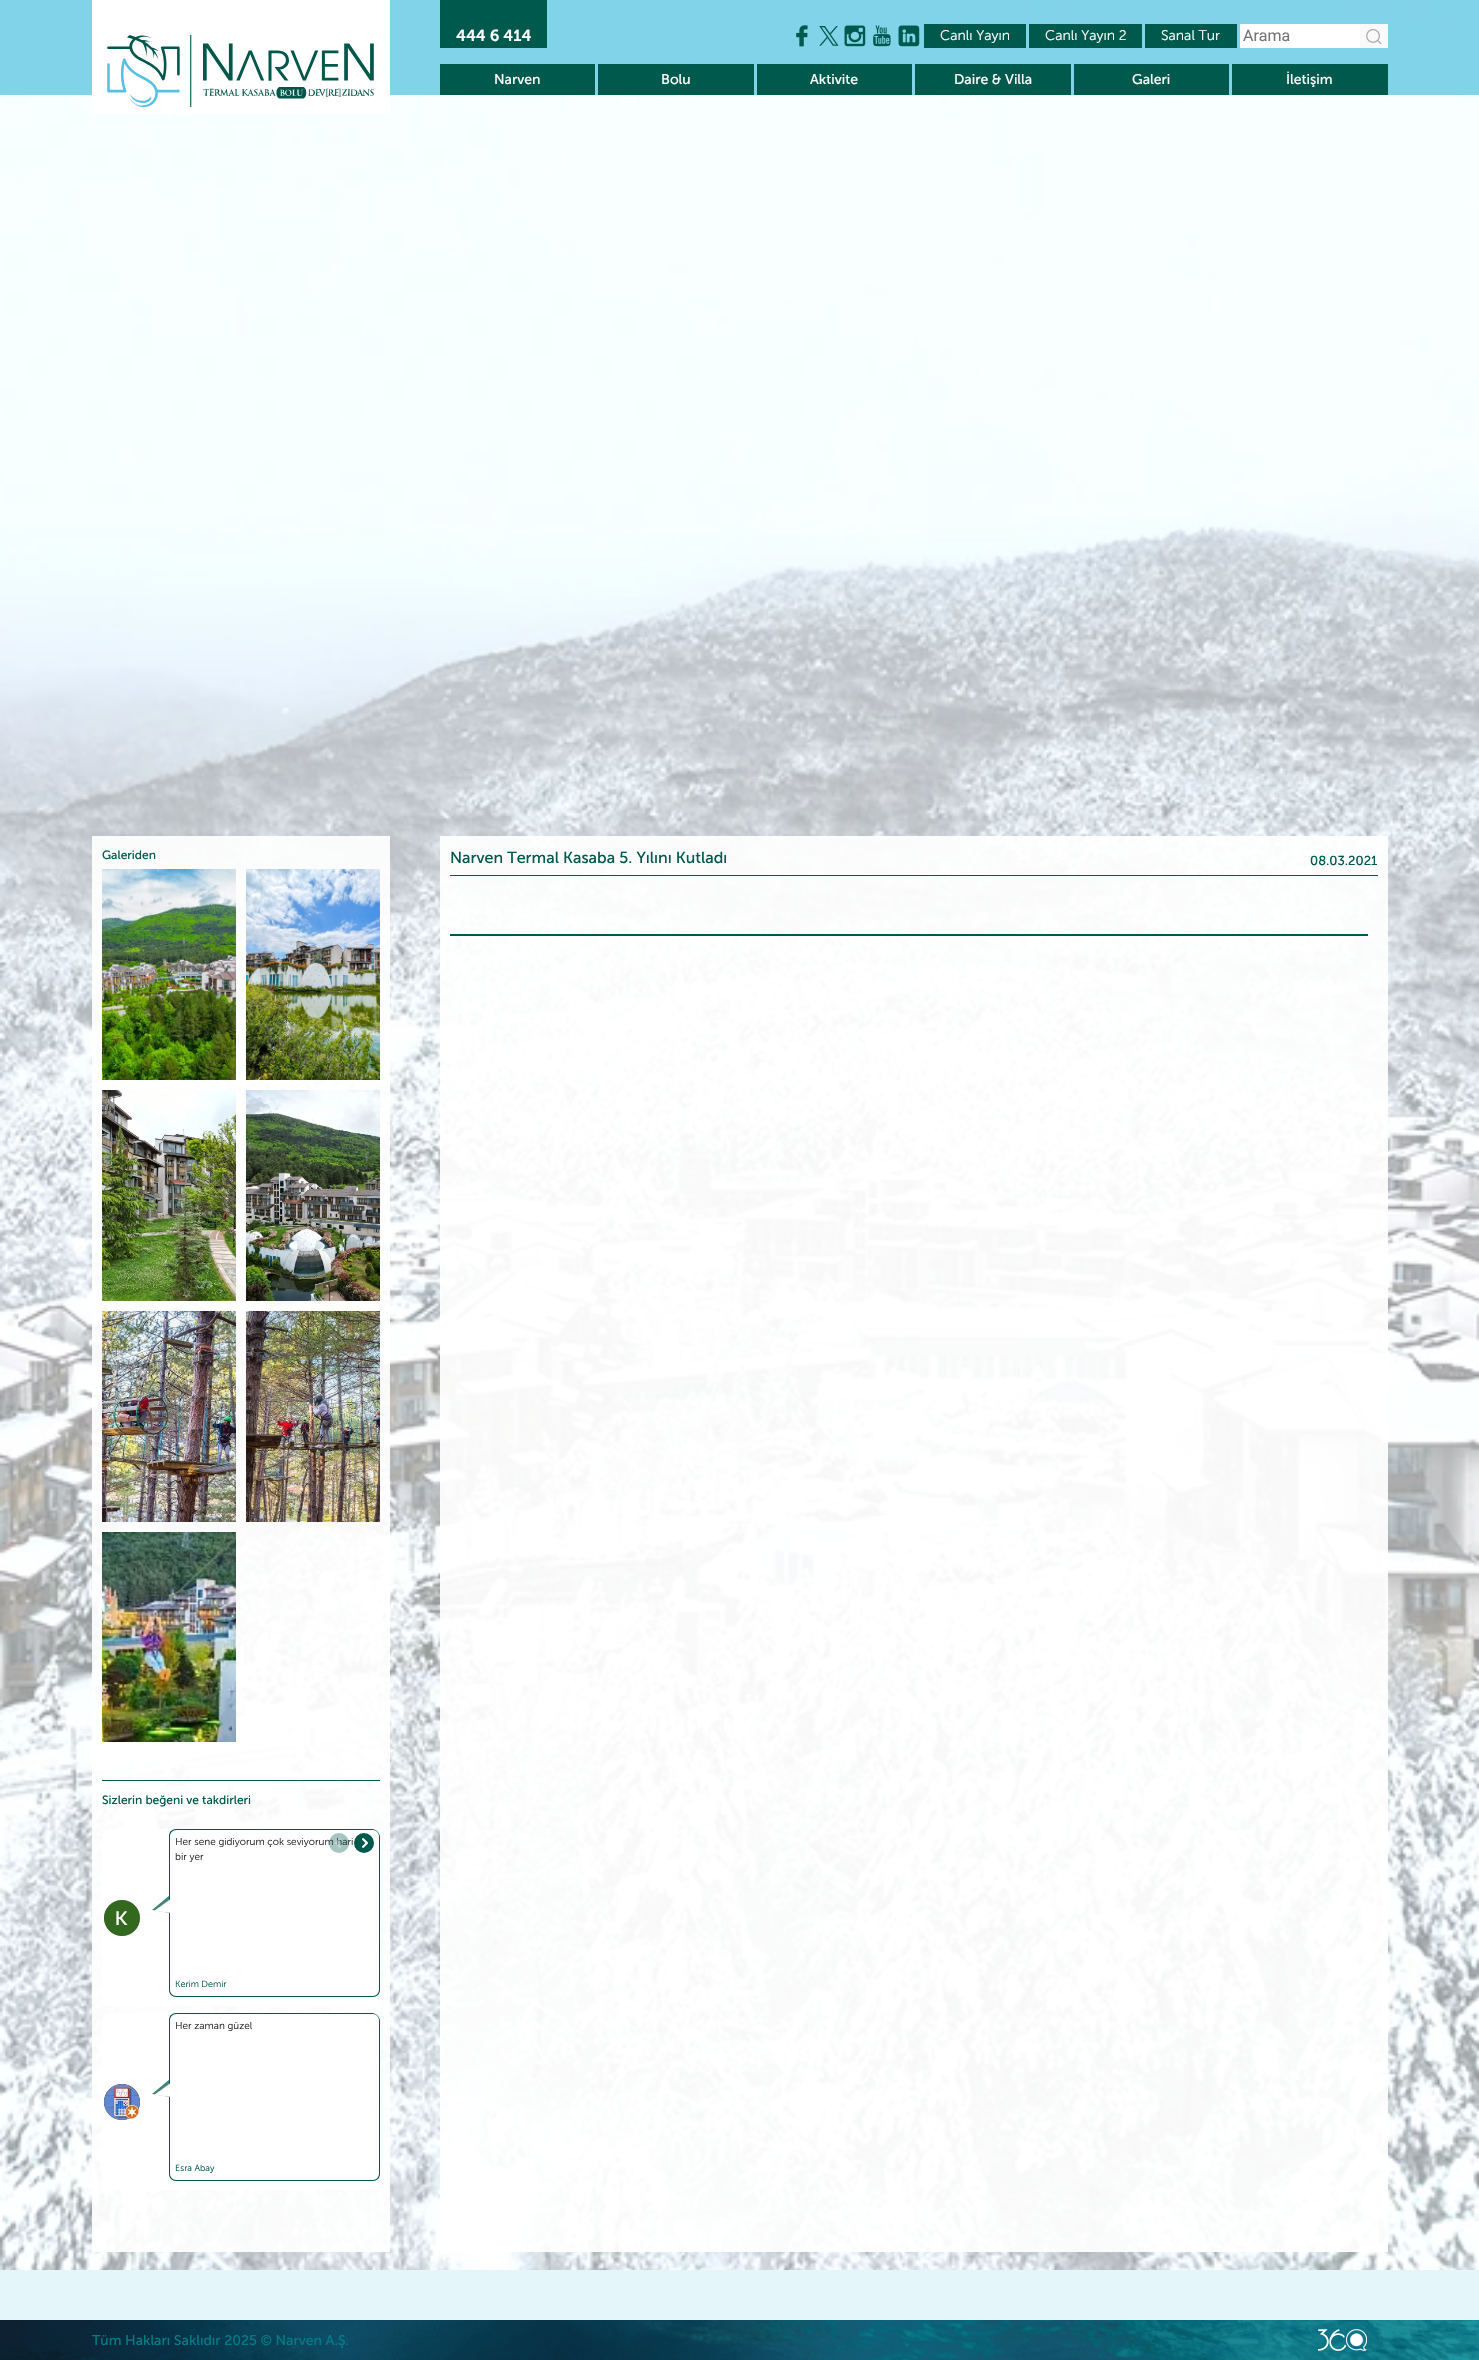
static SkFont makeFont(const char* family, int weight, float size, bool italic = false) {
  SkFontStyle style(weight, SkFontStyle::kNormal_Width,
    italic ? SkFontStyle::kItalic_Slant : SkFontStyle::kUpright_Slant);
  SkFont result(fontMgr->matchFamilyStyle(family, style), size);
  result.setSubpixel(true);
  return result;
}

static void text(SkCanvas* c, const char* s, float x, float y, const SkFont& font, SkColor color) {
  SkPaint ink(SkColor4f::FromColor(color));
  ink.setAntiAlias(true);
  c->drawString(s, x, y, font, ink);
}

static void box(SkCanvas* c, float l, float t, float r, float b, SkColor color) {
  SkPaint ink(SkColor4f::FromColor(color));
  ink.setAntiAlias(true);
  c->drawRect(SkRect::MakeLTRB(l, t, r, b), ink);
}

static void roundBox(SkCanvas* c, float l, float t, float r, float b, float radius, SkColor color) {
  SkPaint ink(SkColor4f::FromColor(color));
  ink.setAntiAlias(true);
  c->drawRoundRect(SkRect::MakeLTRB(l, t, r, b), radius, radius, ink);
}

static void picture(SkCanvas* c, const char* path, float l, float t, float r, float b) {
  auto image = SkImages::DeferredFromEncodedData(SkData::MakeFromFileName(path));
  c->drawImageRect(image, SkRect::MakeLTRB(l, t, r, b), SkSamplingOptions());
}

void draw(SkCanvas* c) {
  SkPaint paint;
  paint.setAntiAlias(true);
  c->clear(0xffffffff);
  picture(c, "img_08.png", 0, 0, 1479, 2270);
  box(c, 0, 0, 1479, 95, 0xb34ec1e0);
  box(c, 92, 0, 390, 114, 0xffffffff);
  picture(c, "img_01.png", 107, 35, 374, 107);
  box(c, 440, 0, 547, 48, 0xff00594d);
  SkFont face1 = makeFont("Museo Sans", 600, 16);
  text(c, "444 6 414", 456, 41, face1, 0xffffffff);
  picture(c, "img_02.png", 796, 25, 808, 47);
  picture(c, "img_03.png", 819, 26, 839, 46);
  picture(c, "img_04.png", 844, 25, 866, 47);
  picture(c, "img_05.png", 873, 25, 891, 47);
  picture(c, "img_06.png", 898, 25, 920, 47);
  box(c, 924, 24, 1026, 48, 0xff00594d);
  SkFont face2 = makeFont("Museo Sans", 300, 14);
  text(c, "Canlı Yayın", 940, 40, face2, 0xffffffff);
  box(c, 1029, 24, 1142, 48, 0xff00594d);
  text(c, "Canlı Yayın 2", 1045, 40, face2, 0xffffffff);
  box(c, 1145, 24, 1237, 48, 0xff00594d);
  text(c, "Sanal Tur", 1161, 40, face2, 0xffffffff);
  box(c, 1240, 24, 1360, 48, 0xffffffff);
  SkFont face3 = makeFont("Roboto", 400, 16);
  text(c, "Arama", 1243, 41, face3, 0xff757575);
  box(c, 1360, 24, 1388, 48, 0xfff9f9f9);
  picture(c, "img_07.png", 1366, 29, 1382, 44);
  box(c, 440, 64, 595, 95, 0xff00594d);
  SkFont face4 = makeFont("Museo Sans", 400, 14);
  text(c, "Narven", 494, 84, face4, 0xffffffff);
  box(c, 598, 64, 754, 95, 0xff00594d);
  text(c, "Bolu", 661, 84, face4, 0xffffffff);
  box(c, 757, 64, 912, 95, 0xff00594d);
  text(c, "Aktivite", 810, 84, face4, 0xffffffff);
  box(c, 915, 64, 1071, 95, 0xff00594d);
  text(c, "Daire & Villa", 954, 84, face4, 0xffffffff);
  box(c, 1074, 64, 1229, 95, 0xff00594d);
  text(c, "Galeri", 1132, 84, face4, 0xffffffff);
  box(c, 1232, 64, 1388, 95, 0xff00594d);
  text(c, "İletişim", 1286, 84, face4, 0xffffffff);
  box(c, 92, 836, 390, 2252, 0xebffffff);
  box(c, 102, 1780, 380, 1781, 0xff00594d);
  SkFont face5 = makeFont("Museo Sans", 400, 12);
  text(c, "Galeriden", 102, 859, face5, 0xff00594d);
  picture(c, "img_09.png", 102, 869, 236, 1080);
  picture(c, "img_10.png", 246, 869, 380, 1080);
  picture(c, "img_11.png", 102, 1090, 236, 1301);
  picture(c, "img_12.png", 246, 1090, 380, 1301);
  picture(c, "img_13.png", 102, 1311, 236, 1522);
  picture(c, "img_14.png", 246, 1311, 380, 1522);
  picture(c, "img_15.png", 102, 1532, 236, 1742);
  text(c, "Sizlerin beğeni ve takdirleri", 102, 1804, face5, 0xff00594d);
  roundBox(c, 102, 1829, 380, 2006, 8, 0xffffffff);
  paint.setColor(0xff00594d);
  c->drawPath(SkPathBuilder(SkPathFillType::kEvenOdd).moveTo(176, 1829).cubicTo(172, 1829, 169, 1832, 169, 1836).lineTo(169, 1990).cubicTo(169, 1994, 172, 1997, 176, 1997).lineTo(373, 1997).cubicTo(377, 1997, 380, 1994, 380, 1990).lineTo(380, 1837).cubicTo(380, 1833, 376, 1829, 372, 1829).close().moveTo(176, 1830).cubicTo(173, 1830, 170, 1833, 170, 1836).lineTo(170, 1990).cubicTo(170, 1993, 173, 1996, 176, 1996).lineTo(373, 1996).cubicTo(376, 1996, 379, 1993, 379, 1990).lineTo(379, 1836).cubicTo(379, 1833, 376, 1830, 373, 1830).close().detach(), paint);
  SkFont face6 = makeFont("Museo Sans", 300, 10);
  text(c, "Her sene gidiyorum çok seviyorum hari", 175, 1845, face6, 0xff222222);
  paint.setColor(0x5900594d);
  c->drawCircle(339, 1843, 10, paint);
  picture(c, "img_16.png", 335, 1838, 341, 1848);
  paint.setColor(0xff00594d);
  c->drawCircle(364, 1843, 10, paint);
  picture(c, "img_17.png", 362, 1838, 368, 1848);
  picture(c, "img_18.png", 104, 1900, 140, 1936);
  text(c, "bir yer", 175, 1860, face6, 0xff222222);
  paint.setColor(0xbd00594d);
  c->drawPath(SkPathBuilder().moveTo(170, 1895).lineTo(170, 1913).lineTo(152, 1910).close().detach(), paint);
  paint.setColor(0xffffffff);
  c->drawPath(SkPathBuilder().moveTo(172, 1898).lineTo(172, 1913).lineTo(154, 1911).close().detach(), paint);
  SkFont face7 = makeFont("Museo Sans", 300, 9);
  text(c, "Kerim Demir", 175, 1987, face7, 0xff00594d);
  roundBox(c, 102, 2013, 380, 2190, 8, 0xffffffff);
  picture(c, "img_19.png", 104, 2084, 140, 2120);
  paint.setColor(0xff00594d);
  c->drawPath(SkPathBuilder(SkPathFillType::kEvenOdd).moveTo(176, 2013).cubicTo(172, 2013, 169, 2016, 169, 2020).lineTo(169, 2174).cubicTo(169, 2178, 172, 2181, 176, 2181).lineTo(373, 2181).cubicTo(377, 2181, 380, 2178, 380, 2174).lineTo(380, 2021).cubicTo(380, 2017, 376, 2013, 372, 2013).close().moveTo(176, 2014).cubicTo(173, 2014, 170, 2017, 170, 2020).lineTo(170, 2174).cubicTo(170, 2177, 173, 2180, 176, 2180).lineTo(373, 2180).cubicTo(376, 2180, 379, 2177, 379, 2174).lineTo(379, 2020).cubicTo(379, 2017, 376, 2014, 373, 2014).close().detach(), paint);
  text(c, "Her zaman güzel", 175, 2029, face6, 0xff222222);
  paint.setColor(0xbd00594d);
  c->drawPath(SkPathBuilder().moveTo(170, 2079).lineTo(170, 2097).lineTo(152, 2094).close().detach(), paint);
  paint.setColor(0xffffffff);
  c->drawPath(SkPathBuilder().moveTo(172, 2082).lineTo(172, 2097).lineTo(154, 2095).close().detach(), paint);
  text(c, "Esra Abay", 175, 2171, face7, 0xff00594d);
  box(c, 440, 836, 1388, 2252, 0xebffffff);
  box(c, 450, 875, 1378, 876, 0xff00594d);
  SkFont face8 = makeFont("Museo Sans", 400, 16);
  text(c, "Narven Termal Kasaba 5. Yılını Kutladı", 450, 863, face8, 0xff00594d);
  SkFont face9 = makeFont("Museo Sans", 400, 13);
  text(c, "08.03.2021", 1310, 865, face9, 0xff00594d);
  box(c, 450, 934, 1368, 936, 0xff00594d);
  box(c, 0, 2270, 1479, 2320, 0xffe5f6fa);
  picture(c, "img_20.png", 0, 2320, 1479, 2360);
  text(c, "Tüm Hakları Saklıdır 2025 © Narven A.Ş.", 92, 2345, face4, 0xff007d85);
  picture(c, "img_21.png", 1318, 2329, 1367, 2351);
}
